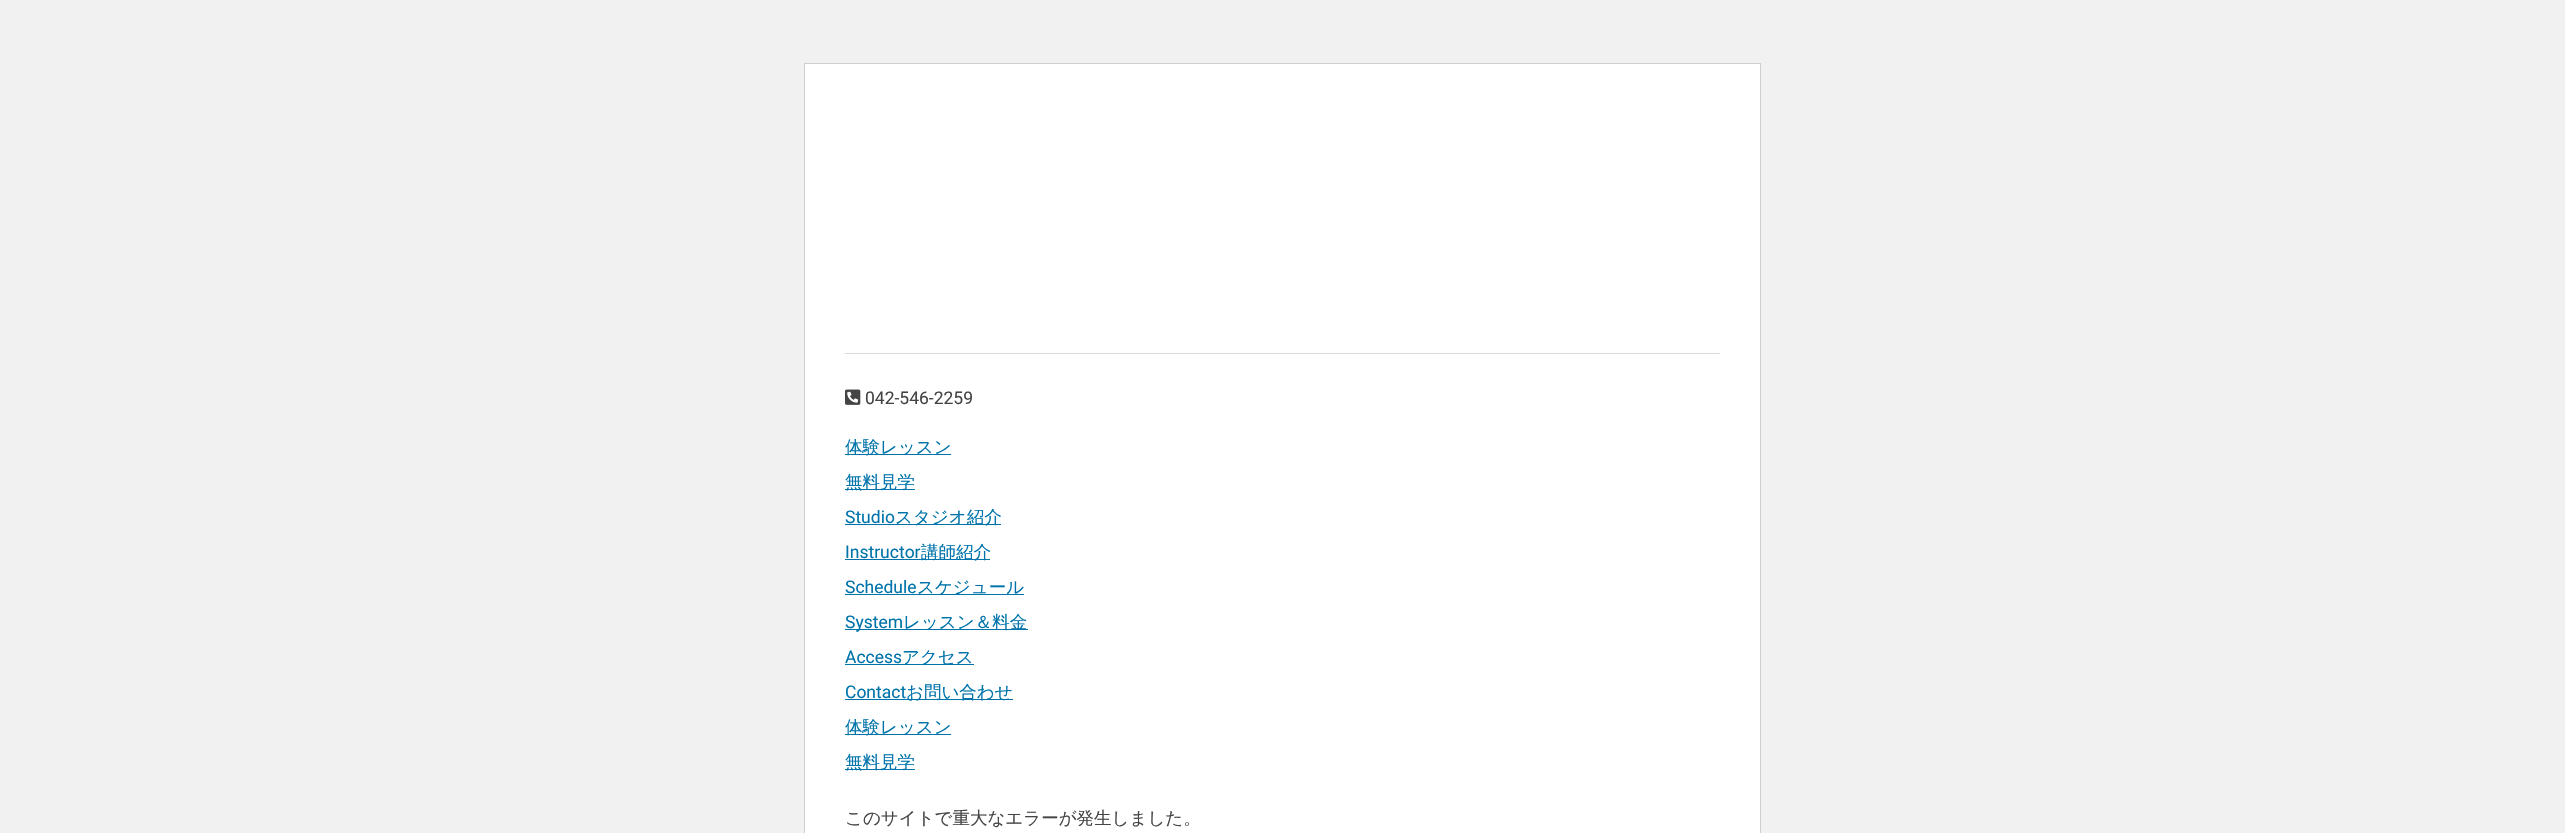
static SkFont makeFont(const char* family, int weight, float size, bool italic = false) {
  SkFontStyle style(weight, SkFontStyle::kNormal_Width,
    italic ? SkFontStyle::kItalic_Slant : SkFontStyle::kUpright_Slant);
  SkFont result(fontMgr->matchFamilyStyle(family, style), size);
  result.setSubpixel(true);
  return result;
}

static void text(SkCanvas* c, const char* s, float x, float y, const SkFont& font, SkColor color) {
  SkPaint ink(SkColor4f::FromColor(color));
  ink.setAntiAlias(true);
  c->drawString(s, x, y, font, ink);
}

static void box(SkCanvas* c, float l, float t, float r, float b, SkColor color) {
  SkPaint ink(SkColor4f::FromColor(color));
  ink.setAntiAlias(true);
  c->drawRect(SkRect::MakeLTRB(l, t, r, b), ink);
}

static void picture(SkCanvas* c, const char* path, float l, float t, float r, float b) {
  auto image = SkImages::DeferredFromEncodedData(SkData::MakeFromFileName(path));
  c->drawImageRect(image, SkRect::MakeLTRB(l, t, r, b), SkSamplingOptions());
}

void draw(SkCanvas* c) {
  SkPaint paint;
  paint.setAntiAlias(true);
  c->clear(0xfff1f1f1);
  paint.setColor(0xffffffff);
  c->drawRect(SkRect::MakeLTRB(804.5f, 63.5f, 1760.5f, 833.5f), paint);
  paint.setStyle(SkPaint::kStroke_Style);
  paint.setStrokeWidth(1);
  paint.setColor(0xffccd0d4);
  c->drawRect(SkRect::MakeLTRB(804.5f, 63.5f, 1760.5f, 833.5f), paint);
  box(c, 845, 353, 1720, 354, 0xffdadada);
  picture(c, "img_01.png", 845, 389, 861, 405);
  SkFont face1 = makeFont("Roboto", 400, 17.5f);
  text(c, "042-546-2259", 865, 404, face1, 0xff444444);
  box(c, 845, 454, 951, 455, 0xff0073aa);
  SkFont face2 = makeFont("WenQuanYi Zen Hei", 500, 17.5f);
  text(c, "体験レッスン", 845, 453, face2, 0xff0073aa);
  box(c, 845, 489, 915, 490, 0xff0073aa);
  text(c, "無料見学", 845, 488, face2, 0xff0073aa);
  text(c, "Studio", 845, 523, face1, 0xff0073aa);
  box(c, 845, 524, 1001, 525, 0xff0073aa);
  text(c, "スタジオ紹介", 895, 523, face2, 0xff0073aa);
  text(c, "Instructor", 845, 558, face1, 0xff0073aa);
  box(c, 845, 559, 990, 560, 0xff0073aa);
  text(c, "講師紹介", 921, 558, face2, 0xff0073aa);
  text(c, "Schedule", 845, 593, face1, 0xff0073aa);
  box(c, 845, 594, 1024, 595, 0xff0073aa);
  text(c, "スケジュール", 917, 593, face2, 0xff0073aa);
  box(c, 845, 629, 1028, 630, 0xff0073aa);
  text(c, "System", 845, 628, face1, 0xff0073aa);
  text(c, "レッスン＆料金", 903, 628, face2, 0xff0073aa);
  text(c, "Access", 845, 663, face1, 0xff0073aa);
  box(c, 845, 664, 974, 665, 0xff0073aa);
  text(c, "アクセス", 902, 663, face2, 0xff0073aa);
  text(c, "Contact", 845, 698, face1, 0xff0073aa);
  box(c, 845, 699, 1013, 700, 0xff0073aa);
  text(c, "お問い合わせ", 906, 698, face2, 0xff0073aa);
  box(c, 845, 734, 951, 735, 0xff0073aa);
  text(c, "体験レッスン", 845, 733, face2, 0xff0073aa);
  box(c, 845, 769, 915, 770, 0xff0073aa);
  text(c, "無料見学", 845, 768, face2, 0xff0073aa);
  text(c, "このサイトで重大なエラーが発生しました。", 845, 824, face2, 0xff444444);
}
